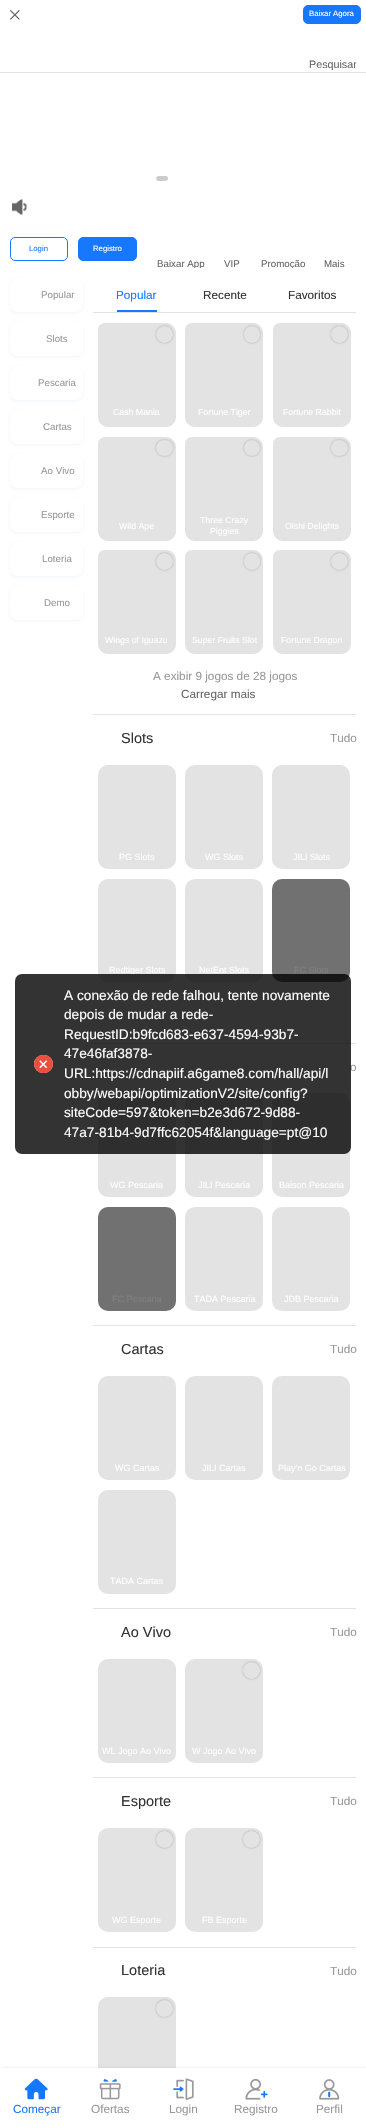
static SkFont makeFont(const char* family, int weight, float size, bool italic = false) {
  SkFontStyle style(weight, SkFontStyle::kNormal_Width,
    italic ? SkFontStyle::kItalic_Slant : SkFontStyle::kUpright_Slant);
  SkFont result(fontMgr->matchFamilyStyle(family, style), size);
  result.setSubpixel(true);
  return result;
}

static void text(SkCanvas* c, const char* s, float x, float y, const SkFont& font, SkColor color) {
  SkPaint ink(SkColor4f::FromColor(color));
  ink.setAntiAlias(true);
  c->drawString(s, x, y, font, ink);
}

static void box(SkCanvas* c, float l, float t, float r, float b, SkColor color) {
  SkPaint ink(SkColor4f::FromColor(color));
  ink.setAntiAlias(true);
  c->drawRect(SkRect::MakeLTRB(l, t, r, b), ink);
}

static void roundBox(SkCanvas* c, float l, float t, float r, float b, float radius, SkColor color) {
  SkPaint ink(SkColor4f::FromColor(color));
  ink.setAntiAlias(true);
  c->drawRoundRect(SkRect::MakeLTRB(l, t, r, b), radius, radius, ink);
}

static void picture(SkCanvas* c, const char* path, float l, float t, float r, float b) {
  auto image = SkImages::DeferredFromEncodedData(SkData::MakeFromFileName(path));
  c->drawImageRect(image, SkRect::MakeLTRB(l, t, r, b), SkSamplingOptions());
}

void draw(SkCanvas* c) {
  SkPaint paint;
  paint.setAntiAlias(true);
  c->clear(0xffffffff);
  picture(c, "img_01.png", 10, 10, 20, 20);
  paint.setColor(0xff1678ff);
  c->drawRoundRect(SkRect::MakeLTRB(303.5f, 5.5f, 360.5f, 23.5f), 4.5f, 4.5f, paint);
  paint.setStyle(SkPaint::kStroke_Style);
  paint.setStrokeWidth(1);
  c->drawRoundRect(SkRect::MakeLTRB(303.5f, 5.5f, 360.5f, 23.5f), 4.5f, 4.5f, paint);
  SkFont face1 = makeFont("Liberation Sans", 400, 7.75f);
  text(c, "Baixar Agora", 309, 16, face1, 0xffffffff);
  box(c, 0, 72, 366, 73, 0xffe3e3e3);
  c->save();
  c->clipRect(SkRect::MakeLTRB(309, 58, 356, 70));
  SkFont face2 = makeFont("Liberation Sans", 400, 10.75f);
  text(c, "Pesquisar", 309, 68, face2, 0xff666666);
  c->restore();
  paint.setStyle(SkPaint::kFill_Style);
  paint.setColor(0xffcccccc);
  c->drawPath(SkPathBuilder().moveTo(158.5f, 176).lineTo(166, 176).cubicTo(167, 176, 168, 177, 168, 178).cubicTo(168.5f, 181, 165, 181, 163, 181).lineTo(158.5f, 181).cubicTo(155.5f, 181, 155.5f, 176, 158.5f, 176).close().detach(), paint);
  picture(c, "img_02.png", 12, 199, 28, 215);
  paint.setStyle(SkPaint::kStroke_Style);
  paint.setColor(0xff1678ff);
  c->drawRoundRect(SkRect::MakeLTRB(10.5f, 237.5f, 67.5f, 260.5f), 4.5f, 4.5f, paint);
  text(c, "Login", 29, 251, face1, 0xff1678ff);
  paint.setStyle(SkPaint::kFill_Style);
  c->drawRoundRect(SkRect::MakeLTRB(78.5f, 237.5f, 136.5f, 260.5f), 4.5f, 4.5f, paint);
  paint.setStyle(SkPaint::kStroke_Style);
  c->drawRoundRect(SkRect::MakeLTRB(78.5f, 237.5f, 136.5f, 260.5f), 4.5f, 4.5f, paint);
  text(c, "Registro", 93, 251, face1, 0xffffffff);
  c->save();
  c->clipRect(SkRect::MakeLTRB(156, 259, 205, 268));
  SkFont face3 = makeFont("Liberation Sans", 400, 9.75f);
  text(c, "Baixar App", 157, 267, face3, 0xff666666);
  c->restore();
  text(c, "VIP", 224, 267, face3, 0xff666666);
  c->save();
  c->clipRect(SkRect::MakeLTRB(259, 259, 307, 268));
  text(c, "Promoção", 261, 267, face3, 0xff666666);
  c->restore();
  text(c, "Mais", 324, 267, face3, 0xff666666);
  c->save();
  c->clipPath(SkPathBuilder(SkPathFillType::kEvenOdd).moveTo(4, 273).lineTo(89, 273).lineTo(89, 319).lineTo(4, 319).close().moveTo(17, 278).lineTo(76, 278).cubicTo(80, 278, 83, 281, 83, 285).lineTo(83, 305).cubicTo(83, 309, 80, 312, 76, 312).lineTo(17, 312).cubicTo(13, 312, 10, 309, 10, 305).lineTo(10, 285).cubicTo(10, 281, 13, 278, 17, 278).close().detach(), true);
  paint.setStyle(SkPaint::kFill_Style);
  paint.setColor(0x1f729fff);
  paint.setMaskFilter(SkMaskFilter::MakeBlur(kNormal_SkBlurStyle, 1.5f));
  c->drawRoundRect(SkRect::MakeLTRB(10, 279, 83, 313), 7, 7, paint);
  paint.setMaskFilter(nullptr);
  c->restore();
  text(c, "Popular", 41, 298, face3, 0xff999999);
  c->save();
  c->clipPath(SkPathBuilder(SkPathFillType::kEvenOdd).moveTo(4, 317).lineTo(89, 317).lineTo(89, 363).lineTo(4, 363).close().moveTo(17, 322).lineTo(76, 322).cubicTo(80, 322, 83, 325, 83, 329).lineTo(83, 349).cubicTo(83, 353, 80, 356, 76, 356).lineTo(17, 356).cubicTo(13, 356, 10, 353, 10, 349).lineTo(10, 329).cubicTo(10, 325, 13, 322, 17, 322).close().detach(), true);
  paint.setMaskFilter(SkMaskFilter::MakeBlur(kNormal_SkBlurStyle, 1.5f));
  c->drawRoundRect(SkRect::MakeLTRB(10, 323, 83, 357), 7, 7, paint);
  paint.setMaskFilter(nullptr);
  c->restore();
  text(c, "Slots", 46, 342, face3, 0xff999999);
  c->save();
  c->clipPath(SkPathBuilder(SkPathFillType::kEvenOdd).moveTo(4, 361).lineTo(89, 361).lineTo(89, 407).lineTo(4, 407).close().moveTo(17, 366).lineTo(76, 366).cubicTo(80, 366, 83, 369, 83, 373).lineTo(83, 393).cubicTo(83, 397, 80, 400, 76, 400).lineTo(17, 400).cubicTo(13, 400, 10, 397, 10, 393).lineTo(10, 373).cubicTo(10, 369, 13, 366, 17, 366).close().detach(), true);
  paint.setMaskFilter(SkMaskFilter::MakeBlur(kNormal_SkBlurStyle, 1.5f));
  c->drawRoundRect(SkRect::MakeLTRB(10, 367, 83, 401), 7, 7, paint);
  paint.setMaskFilter(nullptr);
  c->restore();
  text(c, "Pescaria", 38, 386, face3, 0xff999999);
  c->save();
  c->clipPath(SkPathBuilder(SkPathFillType::kEvenOdd).moveTo(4, 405).lineTo(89, 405).lineTo(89, 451).lineTo(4, 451).close().moveTo(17, 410).lineTo(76, 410).cubicTo(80, 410, 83, 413, 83, 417).lineTo(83, 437).cubicTo(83, 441, 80, 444, 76, 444).lineTo(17, 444).cubicTo(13, 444, 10, 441, 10, 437).lineTo(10, 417).cubicTo(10, 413, 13, 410, 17, 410).close().detach(), true);
  paint.setMaskFilter(SkMaskFilter::MakeBlur(kNormal_SkBlurStyle, 1.5f));
  c->drawRoundRect(SkRect::MakeLTRB(10, 411, 83, 445), 7, 7, paint);
  paint.setMaskFilter(nullptr);
  c->restore();
  text(c, "Cartas", 43, 430, face3, 0xff999999);
  c->save();
  c->clipPath(SkPathBuilder(SkPathFillType::kEvenOdd).moveTo(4, 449).lineTo(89, 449).lineTo(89, 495).lineTo(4, 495).close().moveTo(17, 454).lineTo(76, 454).cubicTo(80, 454, 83, 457, 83, 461).lineTo(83, 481).cubicTo(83, 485, 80, 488, 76, 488).lineTo(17, 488).cubicTo(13, 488, 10, 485, 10, 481).lineTo(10, 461).cubicTo(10, 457, 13, 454, 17, 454).close().detach(), true);
  paint.setMaskFilter(SkMaskFilter::MakeBlur(kNormal_SkBlurStyle, 1.5f));
  c->drawRoundRect(SkRect::MakeLTRB(10, 455, 83, 489), 7, 7, paint);
  paint.setMaskFilter(nullptr);
  c->restore();
  text(c, "Ao Vivo", 41, 474, face3, 0xff999999);
  c->save();
  c->clipPath(SkPathBuilder(SkPathFillType::kEvenOdd).moveTo(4, 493).lineTo(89, 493).lineTo(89, 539).lineTo(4, 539).close().moveTo(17, 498).lineTo(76, 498).cubicTo(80, 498, 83, 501, 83, 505).lineTo(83, 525).cubicTo(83, 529, 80, 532, 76, 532).lineTo(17, 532).cubicTo(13, 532, 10, 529, 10, 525).lineTo(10, 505).cubicTo(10, 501, 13, 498, 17, 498).close().detach(), true);
  paint.setMaskFilter(SkMaskFilter::MakeBlur(kNormal_SkBlurStyle, 1.5f));
  c->drawRoundRect(SkRect::MakeLTRB(10, 499, 83, 533), 7, 7, paint);
  paint.setMaskFilter(nullptr);
  c->restore();
  text(c, "Esporte", 41, 518, face3, 0xff999999);
  c->save();
  c->clipPath(SkPathBuilder(SkPathFillType::kEvenOdd).moveTo(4, 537).lineTo(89, 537).lineTo(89, 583).lineTo(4, 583).close().moveTo(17, 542).lineTo(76, 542).cubicTo(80, 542, 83, 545, 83, 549).lineTo(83, 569).cubicTo(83, 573, 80, 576, 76, 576).lineTo(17, 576).cubicTo(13, 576, 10, 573, 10, 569).lineTo(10, 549).cubicTo(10, 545, 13, 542, 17, 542).close().detach(), true);
  paint.setMaskFilter(SkMaskFilter::MakeBlur(kNormal_SkBlurStyle, 1.5f));
  c->drawRoundRect(SkRect::MakeLTRB(10, 543, 83, 577), 7, 7, paint);
  paint.setMaskFilter(nullptr);
  c->restore();
  text(c, "Loteria", 42, 562, face3, 0xff999999);
  c->save();
  c->clipPath(SkPathBuilder(SkPathFillType::kEvenOdd).moveTo(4, 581).lineTo(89, 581).lineTo(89, 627).lineTo(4, 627).close().moveTo(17, 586).lineTo(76, 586).cubicTo(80, 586, 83, 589, 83, 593).lineTo(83, 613).cubicTo(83, 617, 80, 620, 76, 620).lineTo(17, 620).cubicTo(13, 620, 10, 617, 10, 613).lineTo(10, 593).cubicTo(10, 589, 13, 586, 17, 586).close().detach(), true);
  paint.setMaskFilter(SkMaskFilter::MakeBlur(kNormal_SkBlurStyle, 1.5f));
  c->drawRoundRect(SkRect::MakeLTRB(10, 587, 83, 621), 7, 7, paint);
  paint.setMaskFilter(nullptr);
  c->restore();
  text(c, "Demo", 44, 606, face3, 0xff999999);
  box(c, 93, 312, 356, 313, 0xffe3e3e3);
  SkFont face4 = makeFont("Liberation Sans", 400, 11.75f);
  text(c, "Popular", 116, 299, face4, 0xff1678ff);
  text(c, "Recente", 203, 299, face4, 0xff333333);
  text(c, "Favoritos", 288, 299, face4, 0xff333333);
  box(c, 117, 310, 157, 312, 0xff1678ff);
  paint.setColor(0xffe3e3e3);
  c->drawPath(SkPathBuilder().moveTo(105, 323).lineTo(166, 323).cubicTo(171.5f, 323, 176, 327.5f, 176, 333).lineTo(176, 417).cubicTo(176, 422.5f, 171.5f, 427, 166, 427).lineTo(108, 427).cubicTo(102.5f, 427, 98, 422.5f, 98, 417).lineTo(98, 330).cubicTo(98, 326, 101, 323, 105, 323).close().detach(), paint);
  c->save();
  c->clipPath(SkPathBuilder(SkPathFillType::kEvenOdd).moveTo(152, 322).lineTo(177, 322).lineTo(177, 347).lineTo(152, 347).close().moveTo(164.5f, 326).cubicTo(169, 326, 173, 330, 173, 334.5f).cubicTo(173, 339, 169, 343, 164.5f, 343).cubicTo(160, 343, 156, 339, 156, 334.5f).cubicTo(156, 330, 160, 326, 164.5f, 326).close().detach(), true);
  paint.setColor(0x4d000000);
  paint.setMaskFilter(SkMaskFilter::MakeBlur(kNormal_SkBlurStyle, 1));
  c->drawRoundRect(SkRect::MakeLTRB(156, 326, 173, 343), 8.5f, 8.5f, paint);
  paint.setMaskFilter(nullptr);
  c->restore();
  SkFont face5 = makeFont("Liberation Sans", 400, 8.75f);
  text(c, "Cash Mania", 113, 415, face5, 0xffffffff);
  paint.setColor(0xffe3e3e3);
  c->drawPath(SkPathBuilder().moveTo(192, 323).lineTo(253, 323).cubicTo(258.5f, 323, 263, 327.5f, 263, 333).lineTo(263, 417).cubicTo(263, 422.5f, 258.5f, 427, 253, 427).lineTo(195, 427).cubicTo(189.5f, 427, 185, 422.5f, 185, 417).lineTo(185, 330).cubicTo(185, 326, 188, 323, 192, 323).close().detach(), paint);
  c->save();
  c->clipPath(SkPathBuilder(SkPathFillType::kEvenOdd).moveTo(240, 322).lineTo(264, 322).lineTo(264, 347).lineTo(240, 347).close().moveTo(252, 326).cubicTo(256.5f, 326, 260, 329.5f, 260, 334).lineTo(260, 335).cubicTo(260, 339.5f, 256.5f, 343, 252, 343).cubicTo(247.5f, 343, 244, 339.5f, 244, 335).lineTo(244, 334).cubicTo(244, 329.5f, 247.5f, 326, 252, 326).close().detach(), true);
  paint.setColor(0x4d000000);
  paint.setMaskFilter(SkMaskFilter::MakeBlur(kNormal_SkBlurStyle, 1));
  c->drawRoundRect(SkRect::MakeLTRB(244, 326, 260, 343), 8, 8, paint);
  paint.setMaskFilter(nullptr);
  c->restore();
  text(c, "Fortune Tiger", 198, 415, face5, 0xffffffff);
  paint.setColor(0xffe3e3e3);
  c->drawPath(SkPathBuilder().moveTo(280, 323).lineTo(341, 323).cubicTo(346.5f, 323, 351, 327.5f, 351, 333).lineTo(351, 417).cubicTo(351, 422.5f, 346.5f, 427, 341, 427).lineTo(283, 427).cubicTo(277.5f, 427, 273, 422.5f, 273, 417).lineTo(273, 330).cubicTo(273, 326, 276, 323, 280, 323).close().detach(), paint);
  c->save();
  c->clipPath(SkPathBuilder(SkPathFillType::kEvenOdd).moveTo(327, 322).lineTo(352, 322).lineTo(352, 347).lineTo(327, 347).close().moveTo(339.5f, 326).cubicTo(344, 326, 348, 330, 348, 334.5f).cubicTo(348, 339, 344, 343, 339.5f, 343).cubicTo(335, 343, 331, 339, 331, 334.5f).cubicTo(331, 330, 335, 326, 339.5f, 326).close().detach(), true);
  paint.setColor(0x4d000000);
  paint.setMaskFilter(SkMaskFilter::MakeBlur(kNormal_SkBlurStyle, 1));
  c->drawRoundRect(SkRect::MakeLTRB(331, 326, 348, 343), 8.5f, 8.5f, paint);
  paint.setMaskFilter(nullptr);
  c->restore();
  text(c, "Fortune Rabbit", 283, 415, face5, 0xffffffff);
  paint.setColor(0xffe3e3e3);
  c->drawPath(SkPathBuilder().moveTo(105, 437).lineTo(166, 437).cubicTo(171.5f, 437, 176, 441.5f, 176, 447).lineTo(176, 531).cubicTo(176, 536.5f, 171.5f, 541, 166, 541).lineTo(108, 541).cubicTo(102.5f, 541, 98, 536.5f, 98, 531).lineTo(98, 444).cubicTo(98, 440, 101, 437, 105, 437).close().detach(), paint);
  c->save();
  c->clipPath(SkPathBuilder(SkPathFillType::kEvenOdd).moveTo(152, 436).lineTo(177, 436).lineTo(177, 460).lineTo(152, 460).close().moveTo(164, 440).lineTo(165, 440).cubicTo(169.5f, 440, 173, 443.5f, 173, 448).cubicTo(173, 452.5f, 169.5f, 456, 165, 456).lineTo(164, 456).cubicTo(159.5f, 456, 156, 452.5f, 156, 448).cubicTo(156, 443.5f, 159.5f, 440, 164, 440).close().detach(), true);
  paint.setColor(0x4d000000);
  paint.setMaskFilter(SkMaskFilter::MakeBlur(kNormal_SkBlurStyle, 1));
  c->drawRoundRect(SkRect::MakeLTRB(156, 440, 173, 456), 8, 8, paint);
  paint.setMaskFilter(nullptr);
  c->restore();
  text(c, "Wild Ape", 119, 529, face5, 0xffffffff);
  paint.setColor(0xffe3e3e3);
  c->drawPath(SkPathBuilder().moveTo(192, 437).lineTo(253, 437).cubicTo(258.5f, 437, 263, 441.5f, 263, 447).lineTo(263, 531).cubicTo(263, 536.5f, 258.5f, 541, 253, 541).lineTo(195, 541).cubicTo(189.5f, 541, 185, 536.5f, 185, 531).lineTo(185, 444).cubicTo(185, 440, 188, 437, 192, 437).close().detach(), paint);
  c->save();
  c->clipPath(SkPathBuilder(SkPathFillType::kEvenOdd).moveTo(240, 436).lineTo(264, 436).lineTo(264, 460).lineTo(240, 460).close().moveTo(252, 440).cubicTo(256.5f, 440, 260, 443.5f, 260, 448).cubicTo(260, 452.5f, 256.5f, 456, 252, 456).cubicTo(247.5f, 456, 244, 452.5f, 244, 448).cubicTo(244, 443.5f, 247.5f, 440, 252, 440).close().detach(), true);
  paint.setColor(0x4d000000);
  paint.setMaskFilter(SkMaskFilter::MakeBlur(kNormal_SkBlurStyle, 1));
  c->drawRoundRect(SkRect::MakeLTRB(244, 440, 260, 456), 8, 8, paint);
  paint.setMaskFilter(nullptr);
  c->restore();
  text(c, "Three Crazy", 200, 523, face5, 0xffffffff);
  text(c, "Piggies", 210, 534, face5, 0xffffffff);
  paint.setColor(0xffe3e3e3);
  c->drawPath(SkPathBuilder().moveTo(280, 437).lineTo(341, 437).cubicTo(346.5f, 437, 351, 441.5f, 351, 447).lineTo(351, 531).cubicTo(351, 536.5f, 346.5f, 541, 341, 541).lineTo(283, 541).cubicTo(277.5f, 541, 273, 536.5f, 273, 531).lineTo(273, 444).cubicTo(273, 440, 276, 437, 280, 437).close().detach(), paint);
  c->save();
  c->clipPath(SkPathBuilder(SkPathFillType::kEvenOdd).moveTo(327, 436).lineTo(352, 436).lineTo(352, 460).lineTo(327, 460).close().moveTo(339, 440).lineTo(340, 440).cubicTo(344.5f, 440, 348, 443.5f, 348, 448).cubicTo(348, 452.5f, 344.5f, 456, 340, 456).lineTo(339, 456).cubicTo(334.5f, 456, 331, 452.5f, 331, 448).cubicTo(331, 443.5f, 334.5f, 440, 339, 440).close().detach(), true);
  paint.setColor(0x4d000000);
  paint.setMaskFilter(SkMaskFilter::MakeBlur(kNormal_SkBlurStyle, 1));
  c->drawRoundRect(SkRect::MakeLTRB(331, 440, 348, 456), 8, 8, paint);
  paint.setMaskFilter(nullptr);
  c->restore();
  text(c, "Oishi Delights", 285, 529, face5, 0xffffffff);
  paint.setColor(0xffe3e3e3);
  c->drawPath(SkPathBuilder().moveTo(105, 550).lineTo(166, 550).cubicTo(171.5f, 550, 176, 554.5f, 176, 560).lineTo(176, 644).cubicTo(176, 649.5f, 171.5f, 654, 166, 654).lineTo(108, 654).cubicTo(102.5f, 654, 98, 649.5f, 98, 644).lineTo(98, 557).cubicTo(98, 553, 101, 550, 105, 550).close().detach(), paint);
  c->save();
  c->clipPath(SkPathBuilder(SkPathFillType::kEvenOdd).moveTo(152, 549).lineTo(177, 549).lineTo(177, 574).lineTo(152, 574).close().moveTo(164.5f, 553).cubicTo(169, 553, 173, 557, 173, 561.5f).cubicTo(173, 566, 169, 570, 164.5f, 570).cubicTo(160, 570, 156, 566, 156, 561.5f).cubicTo(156, 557, 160, 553, 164.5f, 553).close().detach(), true);
  paint.setColor(0x4d000000);
  paint.setMaskFilter(SkMaskFilter::MakeBlur(kNormal_SkBlurStyle, 1));
  c->drawRoundRect(SkRect::MakeLTRB(156, 553, 173, 570), 8.5f, 8.5f, paint);
  paint.setMaskFilter(nullptr);
  c->restore();
  text(c, "Wings of Iguazu", 105, 643, face5, 0xffffffff);
  paint.setColor(0xffe3e3e3);
  c->drawPath(SkPathBuilder().moveTo(192, 550).lineTo(253, 550).cubicTo(258.5f, 550, 263, 554.5f, 263, 560).lineTo(263, 644).cubicTo(263, 649.5f, 258.5f, 654, 253, 654).lineTo(195, 654).cubicTo(189.5f, 654, 185, 649.5f, 185, 644).lineTo(185, 557).cubicTo(185, 553, 188, 550, 192, 550).close().detach(), paint);
  c->save();
  c->clipPath(SkPathBuilder(SkPathFillType::kEvenOdd).moveTo(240, 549).lineTo(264, 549).lineTo(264, 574).lineTo(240, 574).close().moveTo(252, 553).cubicTo(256.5f, 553, 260, 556.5f, 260, 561).lineTo(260, 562).cubicTo(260, 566.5f, 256.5f, 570, 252, 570).cubicTo(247.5f, 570, 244, 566.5f, 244, 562).lineTo(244, 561).cubicTo(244, 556.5f, 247.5f, 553, 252, 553).close().detach(), true);
  paint.setColor(0x4d000000);
  paint.setMaskFilter(SkMaskFilter::MakeBlur(kNormal_SkBlurStyle, 1));
  c->drawRoundRect(SkRect::MakeLTRB(244, 553, 260, 570), 8, 8, paint);
  paint.setMaskFilter(nullptr);
  c->restore();
  text(c, "Super Fruits Slot", 192, 643, face5, 0xffffffff);
  paint.setColor(0xffe3e3e3);
  c->drawPath(SkPathBuilder().moveTo(280, 550).lineTo(341, 550).cubicTo(346.5f, 550, 351, 554.5f, 351, 560).lineTo(351, 644).cubicTo(351, 649.5f, 346.5f, 654, 341, 654).lineTo(283, 654).cubicTo(277.5f, 654, 273, 649.5f, 273, 644).lineTo(273, 557).cubicTo(273, 553, 276, 550, 280, 550).close().detach(), paint);
  c->save();
  c->clipPath(SkPathBuilder(SkPathFillType::kEvenOdd).moveTo(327, 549).lineTo(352, 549).lineTo(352, 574).lineTo(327, 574).close().moveTo(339.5f, 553).cubicTo(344, 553, 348, 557, 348, 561.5f).cubicTo(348, 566, 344, 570, 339.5f, 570).cubicTo(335, 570, 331, 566, 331, 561.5f).cubicTo(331, 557, 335, 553, 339.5f, 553).close().detach(), true);
  paint.setColor(0x4d000000);
  paint.setMaskFilter(SkMaskFilter::MakeBlur(kNormal_SkBlurStyle, 1));
  c->drawRoundRect(SkRect::MakeLTRB(331, 553, 348, 570), 8.5f, 8.5f, paint);
  paint.setMaskFilter(nullptr);
  c->restore();
  text(c, "Fortune Dragon", 281, 643, face5, 0xffffffff);
  text(c, "A exibir 9 jogos de 28 jogos", 153, 680, face4, 0xff999999);
  text(c, "Carregar mais", 181, 698, face4, 0xff666666);
  box(c, 93, 714, 356, 715, 0xffe3e3e3);
  SkFont face6 = makeFont("Liberation Sans", 400, 14.5f);
  text(c, "Slots", 121, 743, face6, 0xff333333);
  text(c, "Tudo", 330, 742, face4, 0xff999999);
  roundBox(c, 98, 765, 176, 869, 10, 0xffe3e3e3);
  SkFont face7 = makeFont("Liberation Sans", 400, 9);
  text(c, "PG Slots", 119, 860, face7, 0xffffffff);
  roundBox(c, 185, 765, 263, 869, 10, 0xffe3e3e3);
  text(c, "WG Slots", 205, 860, face7, 0xffffffff);
  roundBox(c, 272, 765, 350, 869, 10, 0xffe3e3e3);
  text(c, "JILI Slots", 293, 860, face7, 0xffffffff);
  roundBox(c, 98, 879, 176, 982, 10, 0xffe3e3e3);
  text(c, "Redtiger Slots", 109, 973, face7, 0xffffffff);
  roundBox(c, 185, 879, 263, 982, 10, 0xffe3e3e3);
  text(c, "NetEnt Slots", 199, 973, face7, 0xffffffff);
  roundBox(c, 272, 879, 350, 982, 10, 0xffe3e3e3);
  text(c, "FC Slots", 294, 973, face7, 0xffffffff);
  roundBox(c, 272, 879, 350, 982, 10, 0x80000000);
  box(c, 93, 1043, 356, 1044, 0xffe3e3e3);
  text(c, "o", 350, 1071, face4, 0xff999999);
  roundBox(c, 98, 1093, 176, 1197, 10, 0xffe3e3e3);
  text(c, "WG Pescaria", 110, 1188, face7, 0xffffffff);
  roundBox(c, 185, 1093, 263, 1197, 10, 0xffe3e3e3);
  text(c, "JILI Pescaria", 198, 1188, face7, 0xffffffff);
  roundBox(c, 272, 1093, 350, 1197, 10, 0xffe3e3e3);
  text(c, "Baison Pescaria", 279, 1188, face7, 0xffffffff);
  roundBox(c, 98, 1207, 176, 1311, 10, 0xffe3e3e3);
  text(c, "FC Pescaria", 112, 1302, face7, 0xffffffff);
  roundBox(c, 98, 1207, 176, 1311, 10, 0x80000000);
  roundBox(c, 185, 1207, 263, 1311, 10, 0xffe3e3e3);
  text(c, "TADA Pescaria", 194, 1302, face7, 0xffffffff);
  roundBox(c, 272, 1207, 350, 1311, 10, 0xffe3e3e3);
  text(c, "JDB Pescaria", 284, 1302, face7, 0xffffffff);
  box(c, 93, 1325, 356, 1326, 0xffe3e3e3);
  text(c, "Cartas", 121, 1354, face6, 0xff333333);
  text(c, "Tudo", 330, 1353, face4, 0xff999999);
  roundBox(c, 98, 1376, 176, 1480, 10, 0xffe3e3e3);
  text(c, "WG Cartas", 115, 1471, face7, 0xffffffff);
  roundBox(c, 185, 1376, 263, 1480, 10, 0xffe3e3e3);
  text(c, "JILI Cartas", 202, 1471, face7, 0xffffffff);
  roundBox(c, 272, 1376, 350, 1480, 10, 0xffe3e3e3);
  text(c, "Play'n Go Cartas", 278, 1471, face7, 0xffffffff);
  roundBox(c, 98, 1490, 176, 1594, 10, 0xffe3e3e3);
  text(c, "TADA Cartas", 110, 1584, face7, 0xffffffff);
  box(c, 93, 1608, 356, 1609, 0xffe3e3e3);
  text(c, "Ao Vivo", 121, 1637, face6, 0xff333333);
  text(c, "Tudo", 330, 1636, face4, 0xff999999);
  roundBox(c, 98, 1659, 176, 1763, 10, 0xffe3e3e3);
  text(c, "WL Jogo Ao Vivo", 102, 1754, face7, 0xffffffff);
  roundBox(c, 185, 1659, 263, 1763, 10, 0xffe3e3e3);
  c->save();
  c->clipPath(SkPathBuilder(SkPathFillType::kEvenOdd).moveTo(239, 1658).lineTo(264, 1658).lineTo(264, 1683).lineTo(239, 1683).close().moveTo(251.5f, 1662).cubicTo(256, 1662, 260, 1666, 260, 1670.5f).cubicTo(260, 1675, 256, 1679, 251.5f, 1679).cubicTo(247, 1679, 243, 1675, 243, 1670.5f).cubicTo(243, 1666, 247, 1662, 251.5f, 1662).close().detach(), true);
  paint.setMaskFilter(SkMaskFilter::MakeBlur(kNormal_SkBlurStyle, 1));
  c->drawRoundRect(SkRect::MakeLTRB(243, 1662, 260, 1679), 8.5f, 8.5f, paint);
  paint.setMaskFilter(nullptr);
  c->restore();
  text(c, "W Jogo Ao Vivo", 192, 1754, face7, 0xffffffff);
  box(c, 93, 1777, 356, 1778, 0xffe3e3e3);
  text(c, "Esporte", 121, 1806, face6, 0xff333333);
  text(c, "Tudo", 330, 1805, face4, 0xff999999);
  roundBox(c, 98, 1828, 176, 1932, 10, 0xffe3e3e3);
  c->save();
  c->clipPath(SkPathBuilder(SkPathFillType::kEvenOdd).moveTo(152, 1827).lineTo(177, 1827).lineTo(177, 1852).lineTo(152, 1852).close().moveTo(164.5f, 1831).cubicTo(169, 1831, 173, 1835, 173, 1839.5f).cubicTo(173, 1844, 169, 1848, 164.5f, 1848).cubicTo(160, 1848, 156, 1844, 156, 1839.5f).cubicTo(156, 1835, 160, 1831, 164.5f, 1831).close().detach(), true);
  paint.setMaskFilter(SkMaskFilter::MakeBlur(kNormal_SkBlurStyle, 1));
  c->drawRoundRect(SkRect::MakeLTRB(156, 1831, 173, 1848), 8.5f, 8.5f, paint);
  paint.setMaskFilter(nullptr);
  c->restore();
  text(c, "WG Esporte", 112, 1923, face7, 0xffffffff);
  roundBox(c, 185, 1828, 263, 1932, 10, 0xffe3e3e3);
  c->save();
  c->clipPath(SkPathBuilder(SkPathFillType::kEvenOdd).moveTo(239, 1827).lineTo(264, 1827).lineTo(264, 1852).lineTo(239, 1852).close().moveTo(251.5f, 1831).cubicTo(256, 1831, 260, 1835, 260, 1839.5f).cubicTo(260, 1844, 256, 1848, 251.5f, 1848).cubicTo(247, 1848, 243, 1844, 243, 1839.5f).cubicTo(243, 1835, 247, 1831, 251.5f, 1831).close().detach(), true);
  paint.setMaskFilter(SkMaskFilter::MakeBlur(kNormal_SkBlurStyle, 1));
  c->drawRoundRect(SkRect::MakeLTRB(243, 1831, 260, 1848), 8.5f, 8.5f, paint);
  paint.setMaskFilter(nullptr);
  c->restore();
  text(c, "FB Esporte", 202, 1923, face7, 0xffffffff);
  box(c, 93, 1947, 356, 1948, 0xffe3e3e3);
  text(c, "Loteria", 121, 1975, face6, 0xff333333);
  text(c, "Tudo", 330, 1975, face4, 0xff999999);
  paint.setColor(0xffe3e3e3);
  c->drawPath(SkPathBuilder().moveTo(108, 1997).lineTo(166, 1997).cubicTo(171.5f, 1997, 176, 2001.5f, 176, 2007).lineTo(176, 2068).lineTo(98, 2068).lineTo(98, 2007).cubicTo(98, 2001.5f, 102.5f, 1997, 108, 1997).close().detach(), paint);
  c->save();
  c->clipPath(SkPathBuilder(SkPathFillType::kEvenOdd).moveTo(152, 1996).lineTo(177, 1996).lineTo(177, 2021).lineTo(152, 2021).close().moveTo(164.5f, 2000).cubicTo(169, 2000, 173, 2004, 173, 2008.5f).cubicTo(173, 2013, 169, 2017, 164.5f, 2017).cubicTo(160, 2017, 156, 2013, 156, 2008.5f).cubicTo(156, 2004, 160, 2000, 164.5f, 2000).close().detach(), true);
  paint.setColor(0x4d000000);
  paint.setMaskFilter(SkMaskFilter::MakeBlur(kNormal_SkBlurStyle, 1));
  c->drawRoundRect(SkRect::MakeLTRB(156, 2000, 173, 2017), 8.5f, 8.5f, paint);
  paint.setMaskFilter(nullptr);
  c->restore();
  paint.setColor(0x1a000000);
  paint.setMaskFilter(SkMaskFilter::MakeBlur(kNormal_SkBlurStyle, 1.5f));
  c->drawRect(SkRect::MakeLTRB(1, 2068, 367, 2128), paint);
  paint.setMaskFilter(nullptr);
  box(c, 0, 2068, 366, 2128, 0xffffffff);
  picture(c, "img_03.png", 24, 2078, 48, 2100);
  text(c, "Começar", 13, 2113, face4, 0xff1678ff);
  picture(c, "img_04.png", 103, 2079, 117, 2082);
  picture(c, "img_05.png", 99, 2083, 121, 2100);
  text(c, "Ofertas", 91, 2113, face4, 0xff999999);
  picture(c, "img_06.png", 176, 2078, 194, 2100);
  picture(c, "img_07.png", 173, 2086, 184, 2092);
  text(c, "Login", 169, 2113, face4, 0xff999999);
  picture(c, "img_08.png", 245, 2078, 262, 2100);
  picture(c, "img_09.png", 260, 2090, 268, 2098);
  text(c, "Registro", 234, 2113, face4, 0xff999999);
  picture(c, "img_10.png", 319, 2079, 340, 2100);
  picture(c, "img_11.png", 328, 2091, 331, 2098);
  text(c, "Perfil", 316, 2113, face4, 0xff999999);
  roundBox(c, 15, 974, 351, 1154, 7, 0xcc000000);
  roundBox(c, 34, 1055, 53, 1073, 9, 0xffffffff);
  picture(c, "img_12.png", 34, 1055, 53, 1073);
  SkFont face8 = makeFont("Liberation Sans", 400, 13.7f);
  text(c, "A conexão de rede falhou, tente novamente", 64, 1000, face8, 0xffffffff);
  text(c, "depois de mudar a rede-", 64, 1019, face8, 0xffffffff);
  text(c, "RequestID:b9fcd683-e637-4594-93b7-", 64, 1039, face8, 0xffffffff);
  text(c, "47e46faf3878-", 64, 1058, face8, 0xffffffff);
  text(c, "URL:https://cdnapiif.a6game8.com/hall/api/l", 64, 1078, face8, 0xffffffff);
  text(c, "obby/webapi/optimizationV2/site/config?", 64, 1098, face8, 0xffffffff);
  text(c, "siteCode=597&token=b2e3d672-9d88-", 64, 1117, face8, 0xffffffff);
  text(c, "47a7-81b4-9d7ffc62054f&language=pt@10", 64, 1137, face8, 0xffffffff);
}
